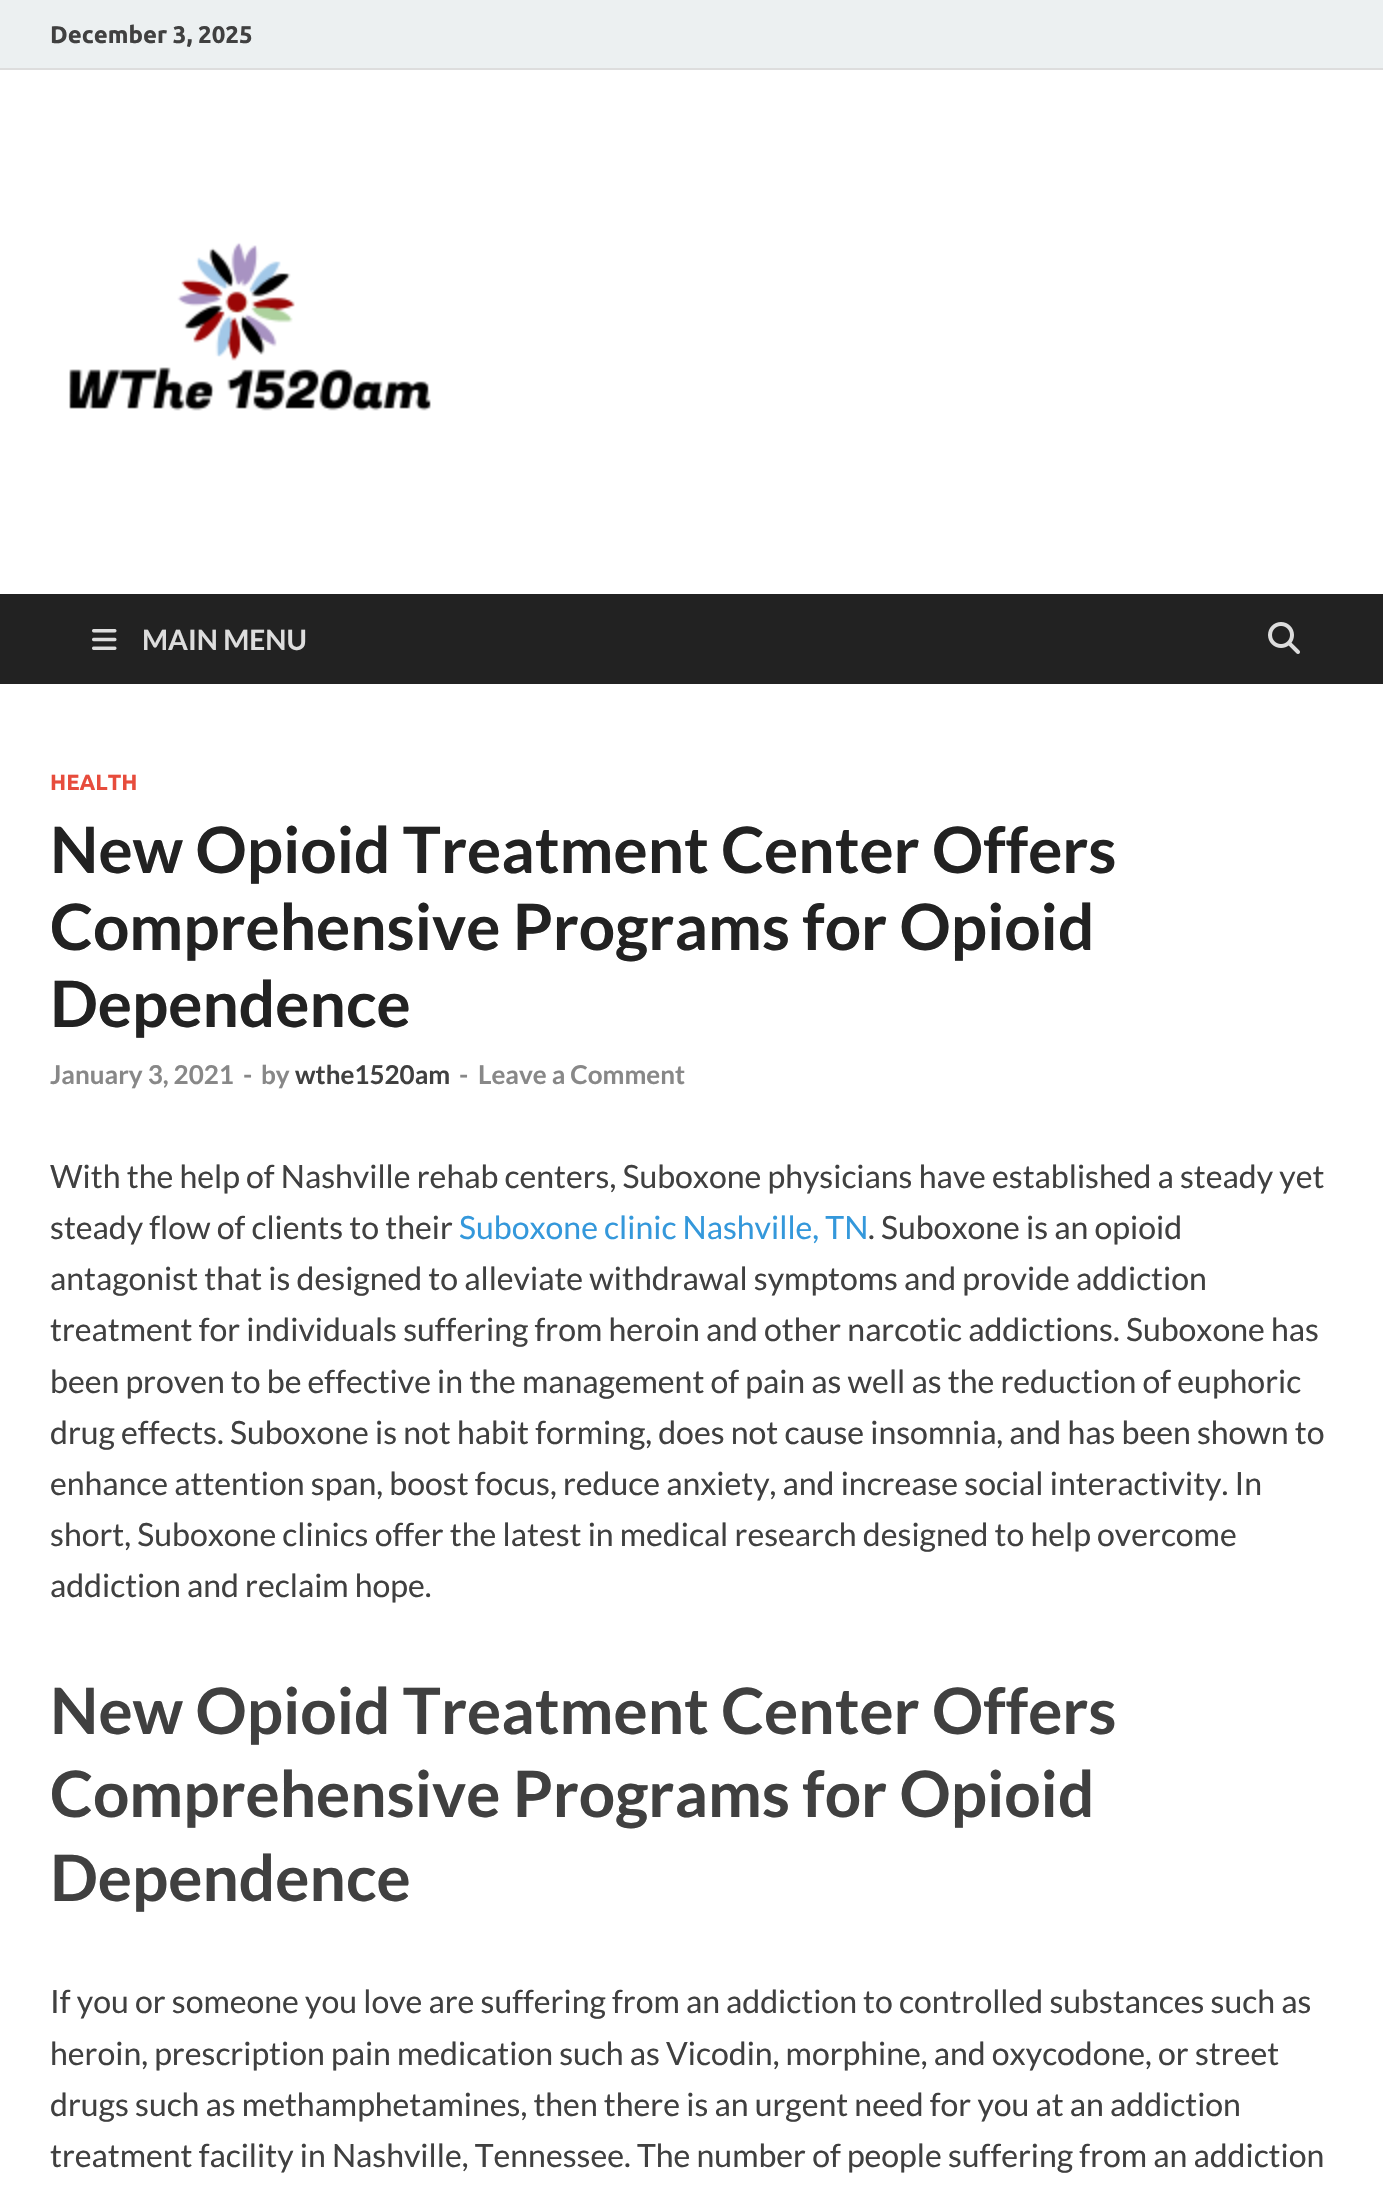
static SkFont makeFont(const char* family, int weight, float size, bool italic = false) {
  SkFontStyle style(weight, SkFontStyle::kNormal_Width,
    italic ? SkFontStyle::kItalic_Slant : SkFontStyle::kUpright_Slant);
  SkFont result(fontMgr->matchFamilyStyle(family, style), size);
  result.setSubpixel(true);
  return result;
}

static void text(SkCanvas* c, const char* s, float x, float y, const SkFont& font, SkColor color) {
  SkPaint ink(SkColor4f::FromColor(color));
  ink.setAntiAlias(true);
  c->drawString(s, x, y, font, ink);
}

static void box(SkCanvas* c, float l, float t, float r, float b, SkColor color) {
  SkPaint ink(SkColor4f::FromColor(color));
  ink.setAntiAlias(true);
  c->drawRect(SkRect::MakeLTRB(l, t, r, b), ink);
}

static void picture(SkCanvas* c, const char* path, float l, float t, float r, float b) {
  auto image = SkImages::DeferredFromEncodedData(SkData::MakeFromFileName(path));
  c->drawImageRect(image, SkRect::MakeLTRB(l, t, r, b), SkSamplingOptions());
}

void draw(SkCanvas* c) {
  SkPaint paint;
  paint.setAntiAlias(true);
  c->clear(0xffffffff);
  box(c, 0, 0, 1383, 68, 0xffecf0f1);
  box(c, 0, 68, 1383, 70, 0xffdddddd);
  SkFont face1 = makeFont("Ubuntu", 700, 24);
  text(c, "December 3, 2025", 50, 43, face1, 0xff404040);
  picture(c, "img_01.png", 69, 242, 431, 411);
  box(c, 0, 594, 1383, 684, 0xff222222);
  picture(c, "img_02.png", 92, 629, 117, 650);
  SkFont face2 = makeFont("Lato", 700, 28);
  text(c, "MAIN MENU", 142, 650, face2, 0xffdddddd);
  picture(c, "img_03.png", 1268, 622, 1300, 654);
  SkFont face3 = makeFont("Ubuntu", 700, 22);
  text(c, "HEALTH", 50, 790, face3, 0xffe74c3c);
  SkFont face4 = makeFont("Lato", 700, 64);
  text(c, "New Opioid Treatment Center Offers", 50, 873, face4, 0xff222222);
  text(c, "Comprehensive Programs for Opioid", 50, 950, face4, 0xff222222);
  text(c, "Dependence", 50, 1027, face4, 0xff222222);
  SkFont face5 = makeFont("Lato", 700, 26);
  text(c, "January 3, 2021", 50, 1084, face5, 0xff888888);
  text(c, "-", 243, 1084, face5, 0xff888888);
  text(c, "by", 261, 1084, face5, 0xff888888);
  text(c, "wthe1520am", 295, 1084, face5, 0xff404040);
  text(c, "-", 459, 1084, face5, 0xff888888);
  text(c, "Leave a Comment", 478, 1084, face5, 0xff888888);
  SkFont face6 = makeFont("Lato", 400, 32);
  text(c, "With the help of Nashville rehab centers, Suboxone physicians have established a steady yet", 50, 1188, face6, 0xff404040);
  text(c, "steady flow of clients to their", 50, 1239, face6, 0xff404040);
  text(c, "Suboxone clinic Nashville, TN", 459, 1239, face6, 0xff3498db);
  text(c, ". Suboxone is an opioid", 868, 1239, face6, 0xff404040);
  text(c, "antagonist that is designed to alleviate withdrawal symptoms and provide addiction", 50, 1290, face6, 0xff404040);
  text(c, "treatment for individuals suffering from heroin and other narcotic addictions. Suboxone has", 50, 1341, face6, 0xff404040);
  text(c, "been proven to be effective in the management of pain as well as the reduction of euphoric", 50, 1393, face6, 0xff404040);
  text(c, "drug effects. Suboxone is not habit forming, does not cause insomnia, and has been shown to", 50, 1444, face6, 0xff404040);
  text(c, "enhance attention span, boost focus, reduce anxiety, and increase social interactivity. In", 50, 1495, face6, 0xff404040);
  text(c, "short, Suboxone clinics offer the latest in medical research designed to help overcome", 50, 1546, face6, 0xff404040);
  text(c, "addiction and reclaim hope.", 50, 1597, face6, 0xff404040);
  text(c, "New Opioid Treatment Center Offers", 50, 1734, face4, 0xff404040);
  text(c, "Comprehensive Programs for Opioid", 50, 1817, face4, 0xff404040);
  text(c, "Dependence", 50, 1901, face4, 0xff404040);
  text(c, "If you or someone you love are suffering from an addiction to controlled substances such as", 50, 2013, face6, 0xff404040);
  text(c, "heroin, prescription pain medication such as Vicodin, morphine, and oxycodone, or street", 50, 2065, face6, 0xff404040);
  text(c, "drugs such as methamphetamines, then there is an urgent need for you at an addiction", 50, 2116, face6, 0xff404040);
  text(c, "treatment facility in Nashville, Tennessee. The number of people suffering from an addiction", 50, 2167, face6, 0xff404040);
}
